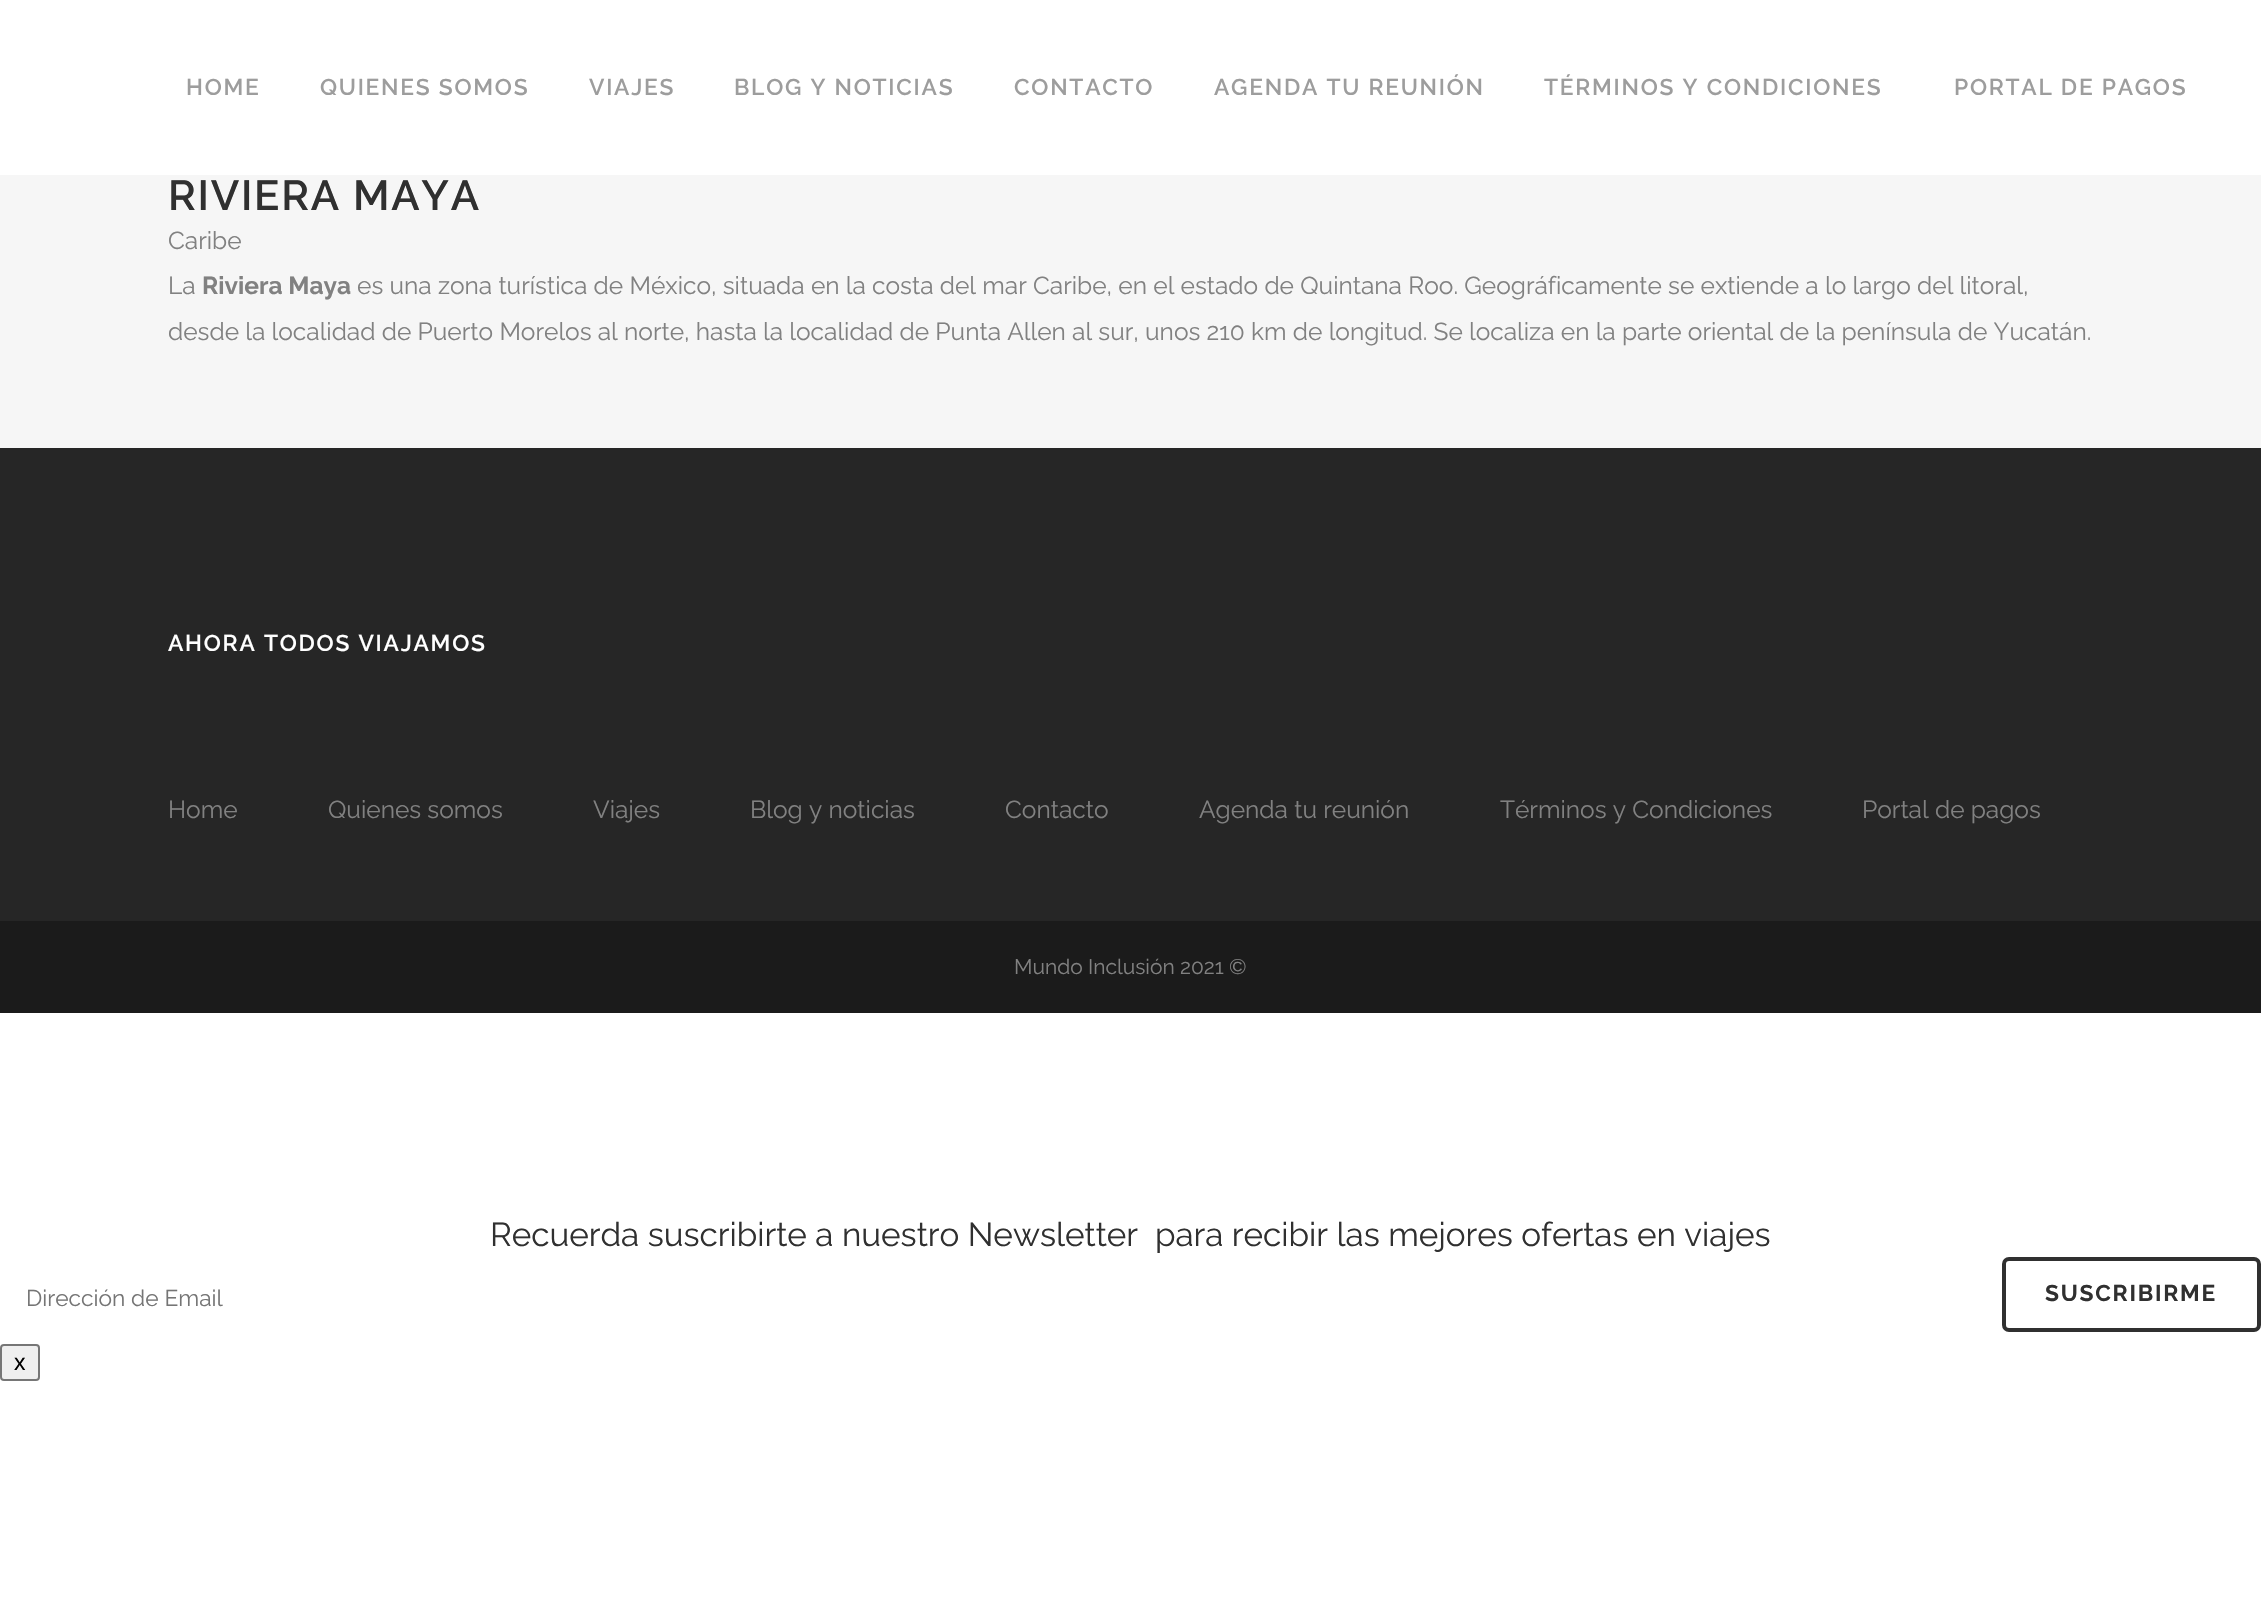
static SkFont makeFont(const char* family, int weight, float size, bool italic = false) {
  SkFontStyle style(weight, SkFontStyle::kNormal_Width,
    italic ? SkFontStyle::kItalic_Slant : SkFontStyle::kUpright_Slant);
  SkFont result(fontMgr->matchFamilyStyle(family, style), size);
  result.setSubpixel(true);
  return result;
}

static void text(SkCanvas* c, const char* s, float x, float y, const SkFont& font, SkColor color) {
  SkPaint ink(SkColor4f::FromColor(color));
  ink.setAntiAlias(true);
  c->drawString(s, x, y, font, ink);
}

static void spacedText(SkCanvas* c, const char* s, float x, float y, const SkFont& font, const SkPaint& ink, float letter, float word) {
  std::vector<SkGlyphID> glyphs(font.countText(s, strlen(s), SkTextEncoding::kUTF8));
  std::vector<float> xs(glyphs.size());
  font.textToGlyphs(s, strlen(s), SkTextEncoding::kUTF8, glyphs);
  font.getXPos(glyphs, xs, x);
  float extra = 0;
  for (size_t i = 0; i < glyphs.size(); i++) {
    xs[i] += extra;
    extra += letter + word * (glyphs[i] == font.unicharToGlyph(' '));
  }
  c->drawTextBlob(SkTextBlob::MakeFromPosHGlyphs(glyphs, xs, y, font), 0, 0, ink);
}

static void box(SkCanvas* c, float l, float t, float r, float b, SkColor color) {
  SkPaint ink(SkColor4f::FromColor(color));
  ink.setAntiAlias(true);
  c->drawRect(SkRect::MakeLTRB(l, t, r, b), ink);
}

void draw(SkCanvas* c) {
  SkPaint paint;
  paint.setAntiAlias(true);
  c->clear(0xffffffff);
  box(c, 0, 175, 2261, 448, 0xfff6f6f6);
  SkFont face1 = makeFont("Raleway", 600, 22.75f);
  paint.setColor(0xff9d9d9d);
  spacedText(c, "HOME", 186, 95, face1, paint, 1.75f, 0);
  spacedText(c, "QUIENES SOMOS", 320, 95, face1, paint, 1.75f, 0);
  spacedText(c, "VIAJES", 589, 95, face1, paint, 1.75f, 0);
  spacedText(c, "BLOG Y NOTICIAS", 734, 95, face1, paint, 1.75f, 0);
  spacedText(c, "CONTACTO", 1014, 95, face1, paint, 1.75f, 0);
  spacedText(c, "AGENDA TU REUNIÓN", 1214, 95, face1, paint, 1.75f, 0);
  spacedText(c, "TÉRMINOS Y CONDICIONES", 1544, 95, face1, paint, 1.75f, 0);
  spacedText(c, "PORTAL DE PAGOS", 1954, 95, face1, paint, 1.75f, 0);
  SkFont face2 = makeFont("Raleway", 600, 42);
  paint.setColor(0xff303030);
  spacedText(c, "RIVIERA MAYA", 168, 210, face2, paint, 1.75f, 0);
  SkFont face3 = makeFont("Raleway", 400, 24.5f);
  text(c, "Caribe", 168, 249, face3, 0xff818181);
  text(c, "La", 168, 294, face3, 0xff818181);
  SkFont face4 = makeFont("Raleway", 700, 24.5f);
  text(c, "Riviera Maya", 202, 294, face4, 0xff818181);
  text(c, "es una zona turística de México, situada en la costa del mar Caribe, en el estado de Quintana Roo. Geográficamente se extiende a lo largo del litoral,", 357, 294, face3, 0xff818181);
  text(c, "desde la localidad de Puerto Morelos al norte, hasta la localidad de Punta Allen al sur, unos 210 km de longitud. Se localiza en la parte oriental de la península de Yucatán.", 168, 340, face3, 0xff818181);
  box(c, 0, 448, 2261, 921, 0xff262626);
  paint.setColor(0xffffffff);
  spacedText(c, "AHORA TODOS VIAJAMOS", 168, 651, face1, paint, 1.75f, 0);
  text(c, "Home", 168, 818, face3, 0xff818181);
  text(c, "Quienes somos", 328, 818, face3, 0xff818181);
  text(c, "Viajes", 593, 818, face3, 0xff818181);
  text(c, "Blog y noticias", 750, 818, face3, 0xff818181);
  text(c, "Contacto", 1005, 818, face3, 0xff818181);
  text(c, "Agenda tu reunión", 1199, 818, face3, 0xff818181);
  text(c, "Términos y Condiciones", 1500, 818, face3, 0xff818181);
  text(c, "Portal de pagos", 1862, 818, face3, 0xff818181);
  box(c, 0, 921, 2261, 1013, 0xff1b1b1b);
  SkFont face5 = makeFont("Raleway", 400, 21);
  text(c, "Mundo Inclusión 2021 ©", 1014, 974, face5, 0xff818181);
  SkFont face6 = makeFont("Raleway", 400, 33.25f);
  text(c, "Recuerda suscribirte a nuestro Newsletter  para recibir las mejores ofertas en viajes", 490, 1246, face6, 0xff303030);
  SkFont face7 = makeFont("Raleway", 400, 22.75f);
  text(c, "Dirección de Email", 26, 1306, face7, 0xff757575);
  paint.setStyle(SkPaint::kStroke_Style);
  paint.setStrokeWidth(4);
  paint.setColor(0xff303030);
  c->drawRoundRect(SkRect::MakeLTRB(2004, 1259, 2259, 1330), 5, 5, paint);
  SkFont face8 = makeFont("Raleway", 700, 22.75f);
  paint.setStyle(SkPaint::kFill_Style);
  spacedText(c, "SUSCRIBIRME", 2045, 1301, face8, paint, 1.75f, 0);
  paint.setColor(0xffefefef);
  c->drawRoundRect(SkRect::MakeLTRB(1, 1345, 39, 1380), 3, 3, paint);
  paint.setStyle(SkPaint::kStroke_Style);
  paint.setStrokeWidth(2);
  paint.setColor(0xff767676);
  c->drawRoundRect(SkRect::MakeLTRB(1, 1345, 39, 1380), 3, 3, paint);
  SkFont face9 = makeFont("Liberation Sans", 400, 23);
  text(c, "x", 14, 1370, face9, 0xff000000);
}
